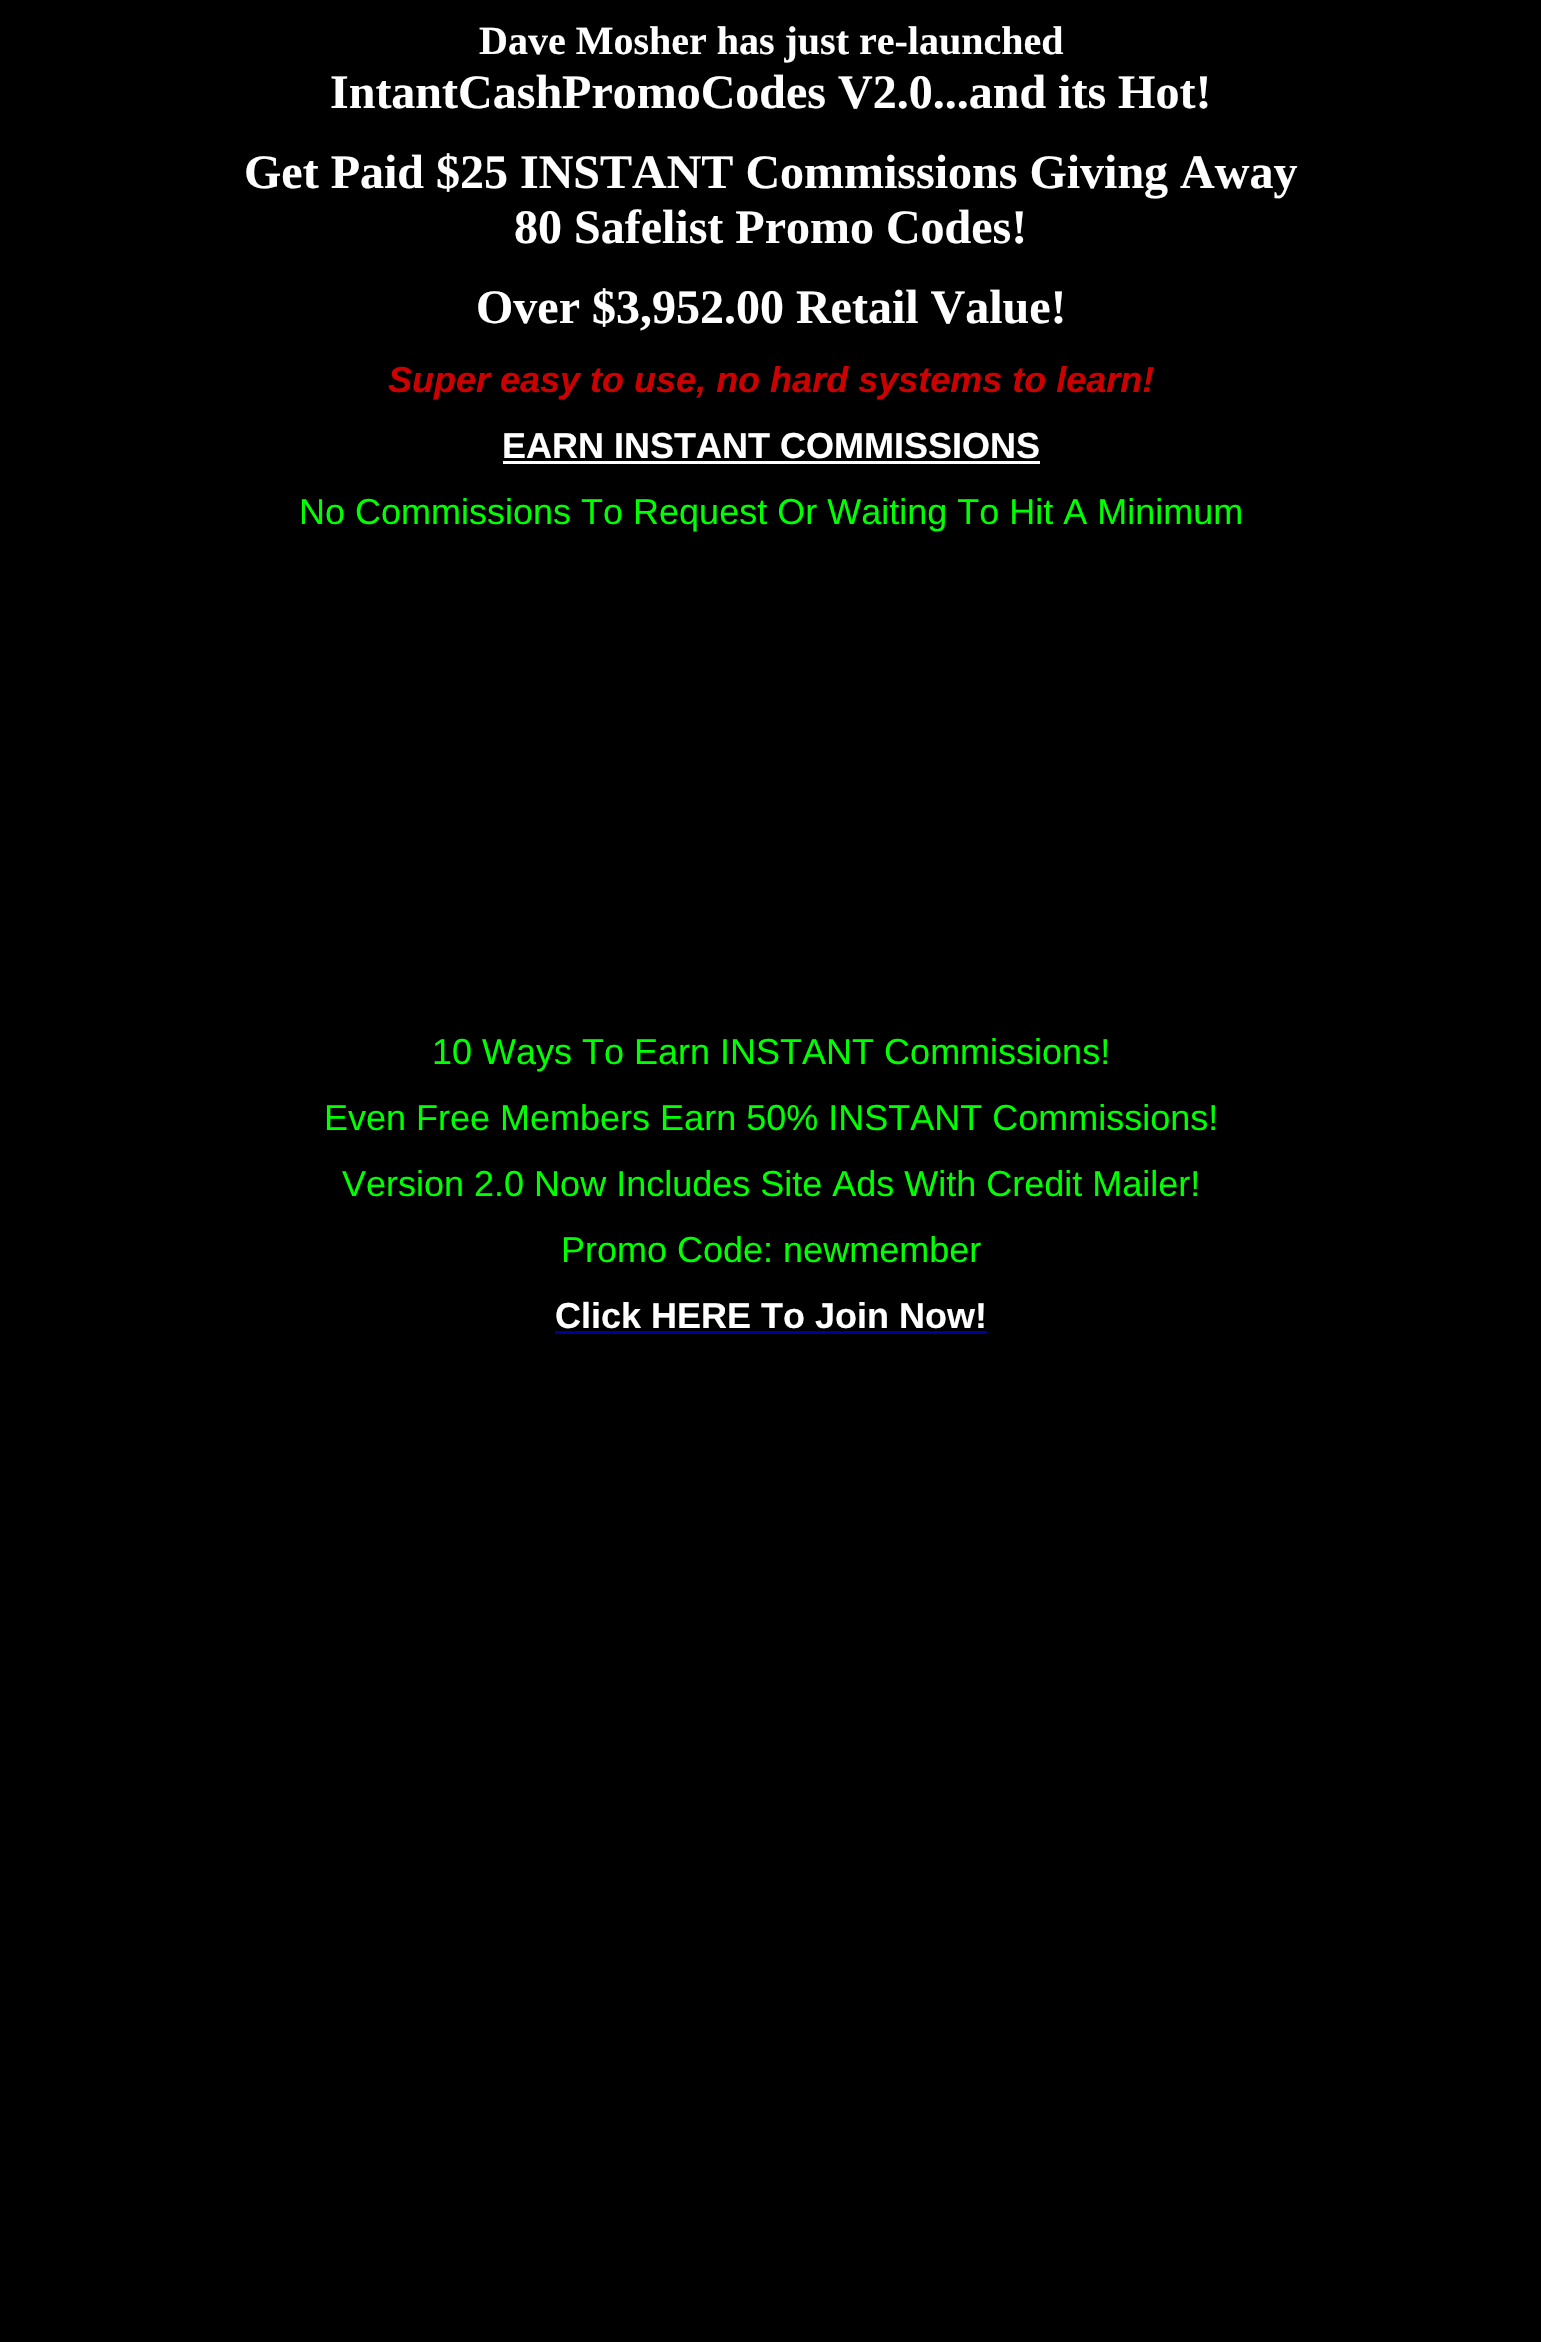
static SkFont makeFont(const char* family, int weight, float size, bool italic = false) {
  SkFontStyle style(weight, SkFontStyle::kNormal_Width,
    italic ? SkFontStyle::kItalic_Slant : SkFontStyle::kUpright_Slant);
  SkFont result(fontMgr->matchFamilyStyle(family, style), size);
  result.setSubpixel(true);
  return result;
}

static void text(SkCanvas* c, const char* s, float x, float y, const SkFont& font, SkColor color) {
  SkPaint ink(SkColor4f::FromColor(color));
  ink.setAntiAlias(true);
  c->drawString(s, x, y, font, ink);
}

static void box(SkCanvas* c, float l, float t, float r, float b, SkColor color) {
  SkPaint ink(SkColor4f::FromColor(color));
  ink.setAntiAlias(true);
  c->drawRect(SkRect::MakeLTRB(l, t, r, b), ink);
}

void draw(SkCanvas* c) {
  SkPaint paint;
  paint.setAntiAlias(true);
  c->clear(0xff000000);
  SkFont face1 = makeFont("Liberation Serif", 700, 40);
  text(c, "Dave Mosher has just re-launched", 479, 54, face1, 0xffffffff);
  SkFont face2 = makeFont("Liberation Serif", 700, 48);
  text(c, "IntantCashPromoCodes V2.0...and its Hot!", 330, 108, face2, 0xffffffff);
  text(c, "Get Paid $25 INSTANT Commissions Giving Away", 244, 188, face2, 0xffffffff);
  text(c, "80 Safelist Promo Codes!", 514, 243, face2, 0xffffffff);
  text(c, "Over $3,952.00 Retail Value!", 476, 323, face2, 0xffffffff);
  SkFont face3 = makeFont("Liberation Sans", 700, 36, true);
  text(c, "Super easy to use, no hard systems to learn!", 388, 392, face3, 0xffcc0000);
  SkFont face4 = makeFont("Liberation Sans", 700, 36);
  text(c, "EARN INSTANT COMMISSIONS", 502, 458, face4, 0xffffffff);
  box(c, 503, 461, 1040, 464, 0xffffffff);
  SkFont face5 = makeFont("Liberation Sans", 400, 36);
  text(c, "No Commissions To Request Or Waiting To Hit A Minimum", 299, 524, face5, 0xff00ff00);
  text(c, "10 Ways To Earn INSTANT Commissions!", 432, 1064, face5, 0xff00ff00);
  text(c, "Even Free Members Earn 50% INSTANT Commissions!", 324, 1130, face5, 0xff00ff00);
  text(c, "Version 2.0 Now Includes Site Ads With Credit Mailer!", 342, 1196, face5, 0xff00ff00);
  text(c, "Promo Code: newmember", 561, 1262, face5, 0xff00ff00);
  text(c, "Click HERE To Join Now!", 555, 1328, face4, 0xffffffff);
  box(c, 555, 1331, 987, 1334, 0xff000099);
}
